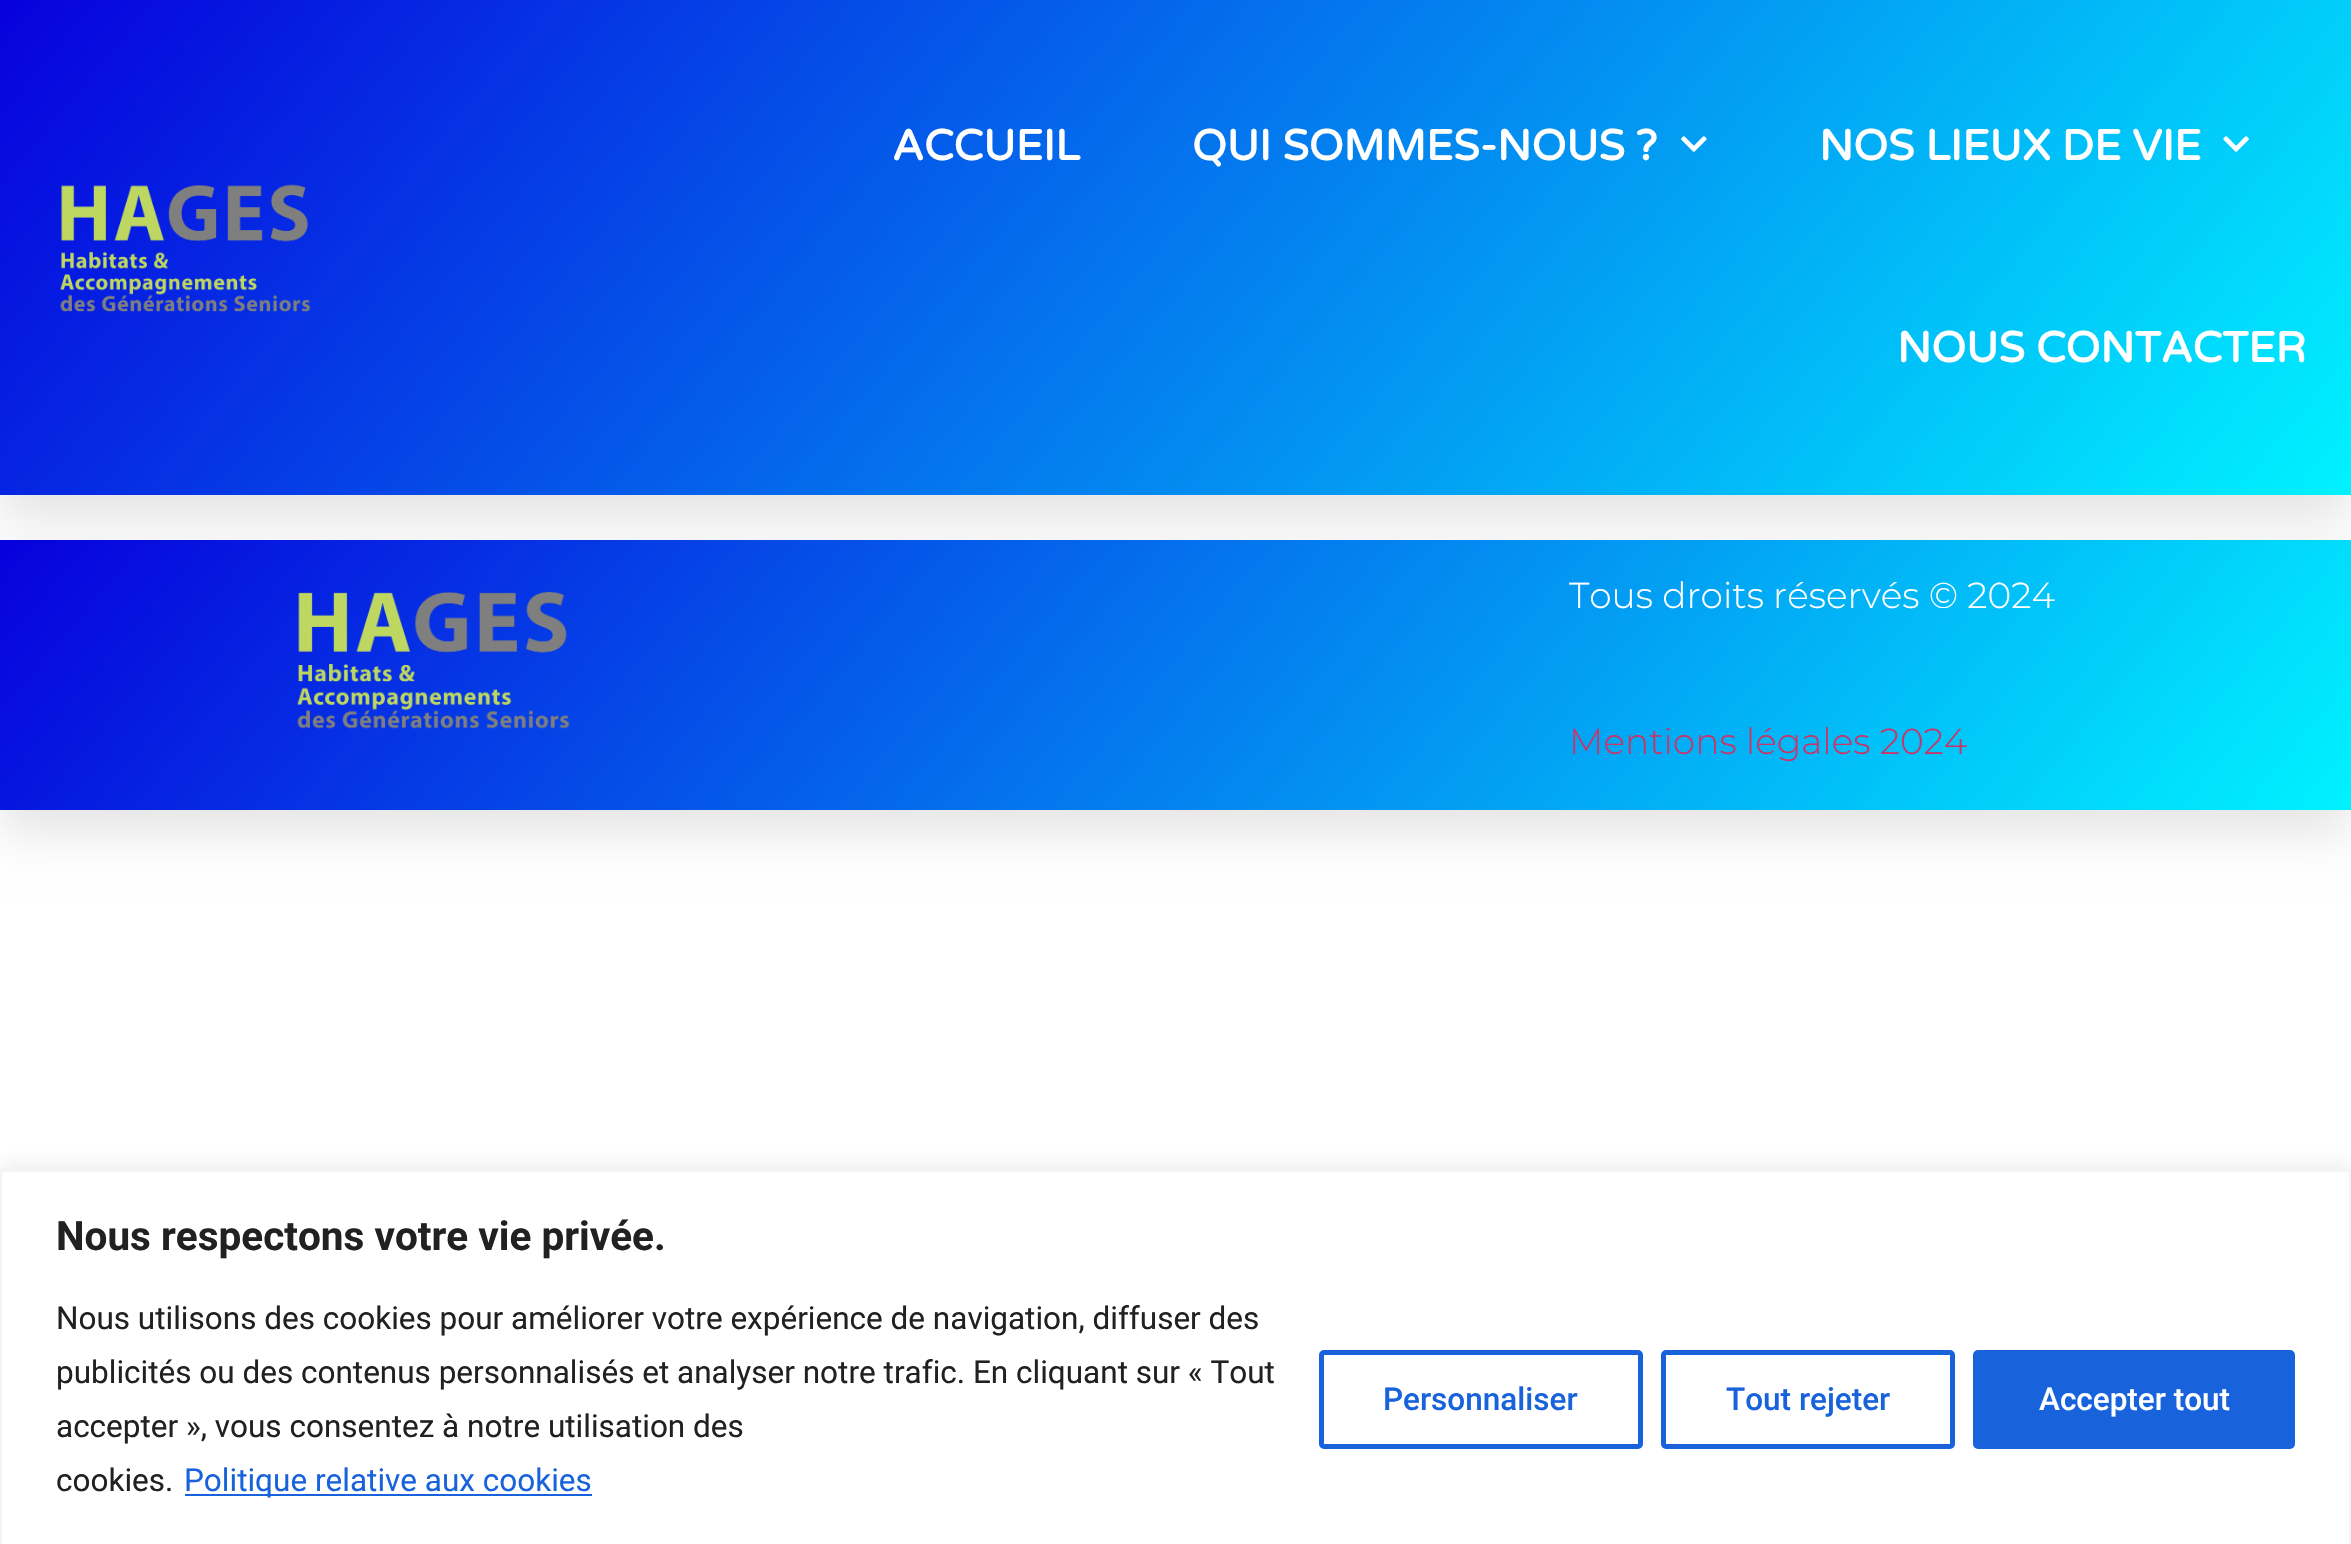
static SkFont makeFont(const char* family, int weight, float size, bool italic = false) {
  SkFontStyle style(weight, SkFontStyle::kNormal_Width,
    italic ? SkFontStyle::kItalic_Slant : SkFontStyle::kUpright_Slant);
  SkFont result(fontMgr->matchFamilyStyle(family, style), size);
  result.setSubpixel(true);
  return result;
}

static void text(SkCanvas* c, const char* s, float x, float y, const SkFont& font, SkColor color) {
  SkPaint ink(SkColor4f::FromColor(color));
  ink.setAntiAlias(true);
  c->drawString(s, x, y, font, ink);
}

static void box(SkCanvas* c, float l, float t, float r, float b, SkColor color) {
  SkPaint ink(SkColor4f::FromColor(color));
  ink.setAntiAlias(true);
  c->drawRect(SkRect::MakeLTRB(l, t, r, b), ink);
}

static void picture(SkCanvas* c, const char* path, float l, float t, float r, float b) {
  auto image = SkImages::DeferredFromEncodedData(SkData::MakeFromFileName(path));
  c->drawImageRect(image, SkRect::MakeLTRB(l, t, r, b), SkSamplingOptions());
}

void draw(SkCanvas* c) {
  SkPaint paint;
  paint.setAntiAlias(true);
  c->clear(0xffffffff);
  paint.setColor(0x1a000000);
  paint.setMaskFilter(SkMaskFilter::MakeBlur(kNormal_SkBlurStyle, 22.5f));
  c->drawRect(SkRect::MakeLTRB(0, 23, 2351, 518), paint);
  paint.setMaskFilter(nullptr);
  {
    const SkColor colors[] = {0xff0700dd, 0xff00f2ff};
    const float stops[] = {0, 1};
    const SkPoint ends[] = {{364, -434}, {1987, 929}};
    paint.setShader(SkGradientShader::MakeLinear(ends, colors, stops, 2, SkTileMode::kClamp));
    paint.setAlpha(255);
  }
  c->drawRect(SkRect::MakeLTRB(0, 0, 2351, 495), paint);
  picture(c, "img_01.png", 60, 184, 311, 312);
  SkFont face1 = makeFont("Varela Round", 700, 42.75f);
  text(c, "ACCUEIL", 892, 160, face1, 0xffffffff);
  text(c, "QUI SOMMES-NOUS ?", 1192, 160, face1, 0xffffffff);
  picture(c, "img_02.png", 1681, 136, 1707, 152);
  text(c, "NOS LIEUX DE VIE", 1819, 160, face1, 0xffffffff);
  picture(c, "img_03.png", 2223, 136, 2249, 152);
  text(c, "NOUS CONTACTER", 1897, 362, face1, 0xffffffff);
  paint.setShader(nullptr);
  paint.setColor(0x1a000000);
  paint.setMaskFilter(SkMaskFilter::MakeBlur(kNormal_SkBlurStyle, 22.5f));
  c->drawRect(SkRect::MakeLTRB(0, 563, 2351, 833), paint);
  paint.setMaskFilter(nullptr);
  {
    const SkColor colors[] = {0xff0700dd, 0xff00f2ff};
    const float stops[] = {0, 1};
    const SkPoint ends[] = {{419, 40}, {1932, 1310}};
    paint.setShader(SkGradientShader::MakeLinear(ends, colors, stops, 2, SkTileMode::kClamp));
    paint.setAlpha(255);
  }
  c->drawRect(SkRect::MakeLTRB(0, 540, 2351, 810), paint);
  picture(c, "img_04.png", 297, 591, 570, 729);
  SkFont face2 = makeFont("Montserrat", 300, 36);
  text(c, "Tous droits réservés © 2024", 1569, 608, face2, 0xffffffff);
  text(c, "Mentions légales 2024", 1569, 754, face2, 0xffcc3366);
  c->save();
  c->clipRect(SkRect::MakeLTRB(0, 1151, 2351, 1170));
  paint.setShader(nullptr);
  paint.setColor(0x4dacabab);
  paint.setMaskFilter(SkMaskFilter::MakeBlur(kNormal_SkBlurStyle, 11));
  c->drawRect(SkRect::MakeLTRB(0, 1168, 2351, 1544), paint);
  paint.setMaskFilter(nullptr);
  c->restore();
  paint.setStyle(SkPaint::kStroke_Style);
  paint.setStrokeWidth(2);
  paint.setColor(0xfff4f4f4);
  c->drawRect(SkRect::MakeLTRB(1, 1171, 2350, 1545), paint);
  SkFont face3 = makeFont("Roboto", 700, 40.5f);
  text(c, "Nous respectons votre vie privée.", 56, 1250, face3, 0xff212121);
  SkFont face4 = makeFont("Roboto", 400, 31.5f);
  text(c, "Nous utilisons des cookies pour améliorer votre expérience de navigation, diffuser des", 56, 1329, face4, 0xff212121);
  text(c, "publicités ou des contenus personnalisés et analyser notre trafic. En cliquant sur « Tout", 56, 1383, face4, 0xff212121);
  text(c, "accepter », vous consentez à notre utilisation des", 56, 1437, face4, 0xff212121);
  text(c, "cookies.", 56, 1491, face4, 0xff212121);
  box(c, 185, 1494, 592, 1496, 0xff1863dc);
  text(c, "Politique relative aux cookies", 184, 1491, face4, 0xff1863dc);
  paint.setStrokeWidth(5);
  paint.setColor(0xff1863dc);
  c->drawRoundRect(SkRect::MakeLTRB(1321.5f, 1352.5f, 1640.5f, 1446.5f), 2.5f, 2.5f, paint);
  SkFont face5 = makeFont("Roboto", 500, 31.5f);
  text(c, "Personnaliser", 1383, 1410, face5, 0xff1863dc);
  c->drawRoundRect(SkRect::MakeLTRB(1663.5f, 1352.5f, 1952.5f, 1446.5f), 2.5f, 2.5f, paint);
  text(c, "Tout rejeter", 1726, 1410, face5, 0xff1863dc);
  paint.setStyle(SkPaint::kFill_Style);
  c->drawRoundRect(SkRect::MakeLTRB(1975.5f, 1352.5f, 2292.5f, 1446.5f), 2.5f, 2.5f, paint);
  paint.setStyle(SkPaint::kStroke_Style);
  c->drawRoundRect(SkRect::MakeLTRB(1975.5f, 1352.5f, 2292.5f, 1446.5f), 2.5f, 2.5f, paint);
  text(c, "Accepter tout", 2039, 1410, face5, 0xffffffff);
}
